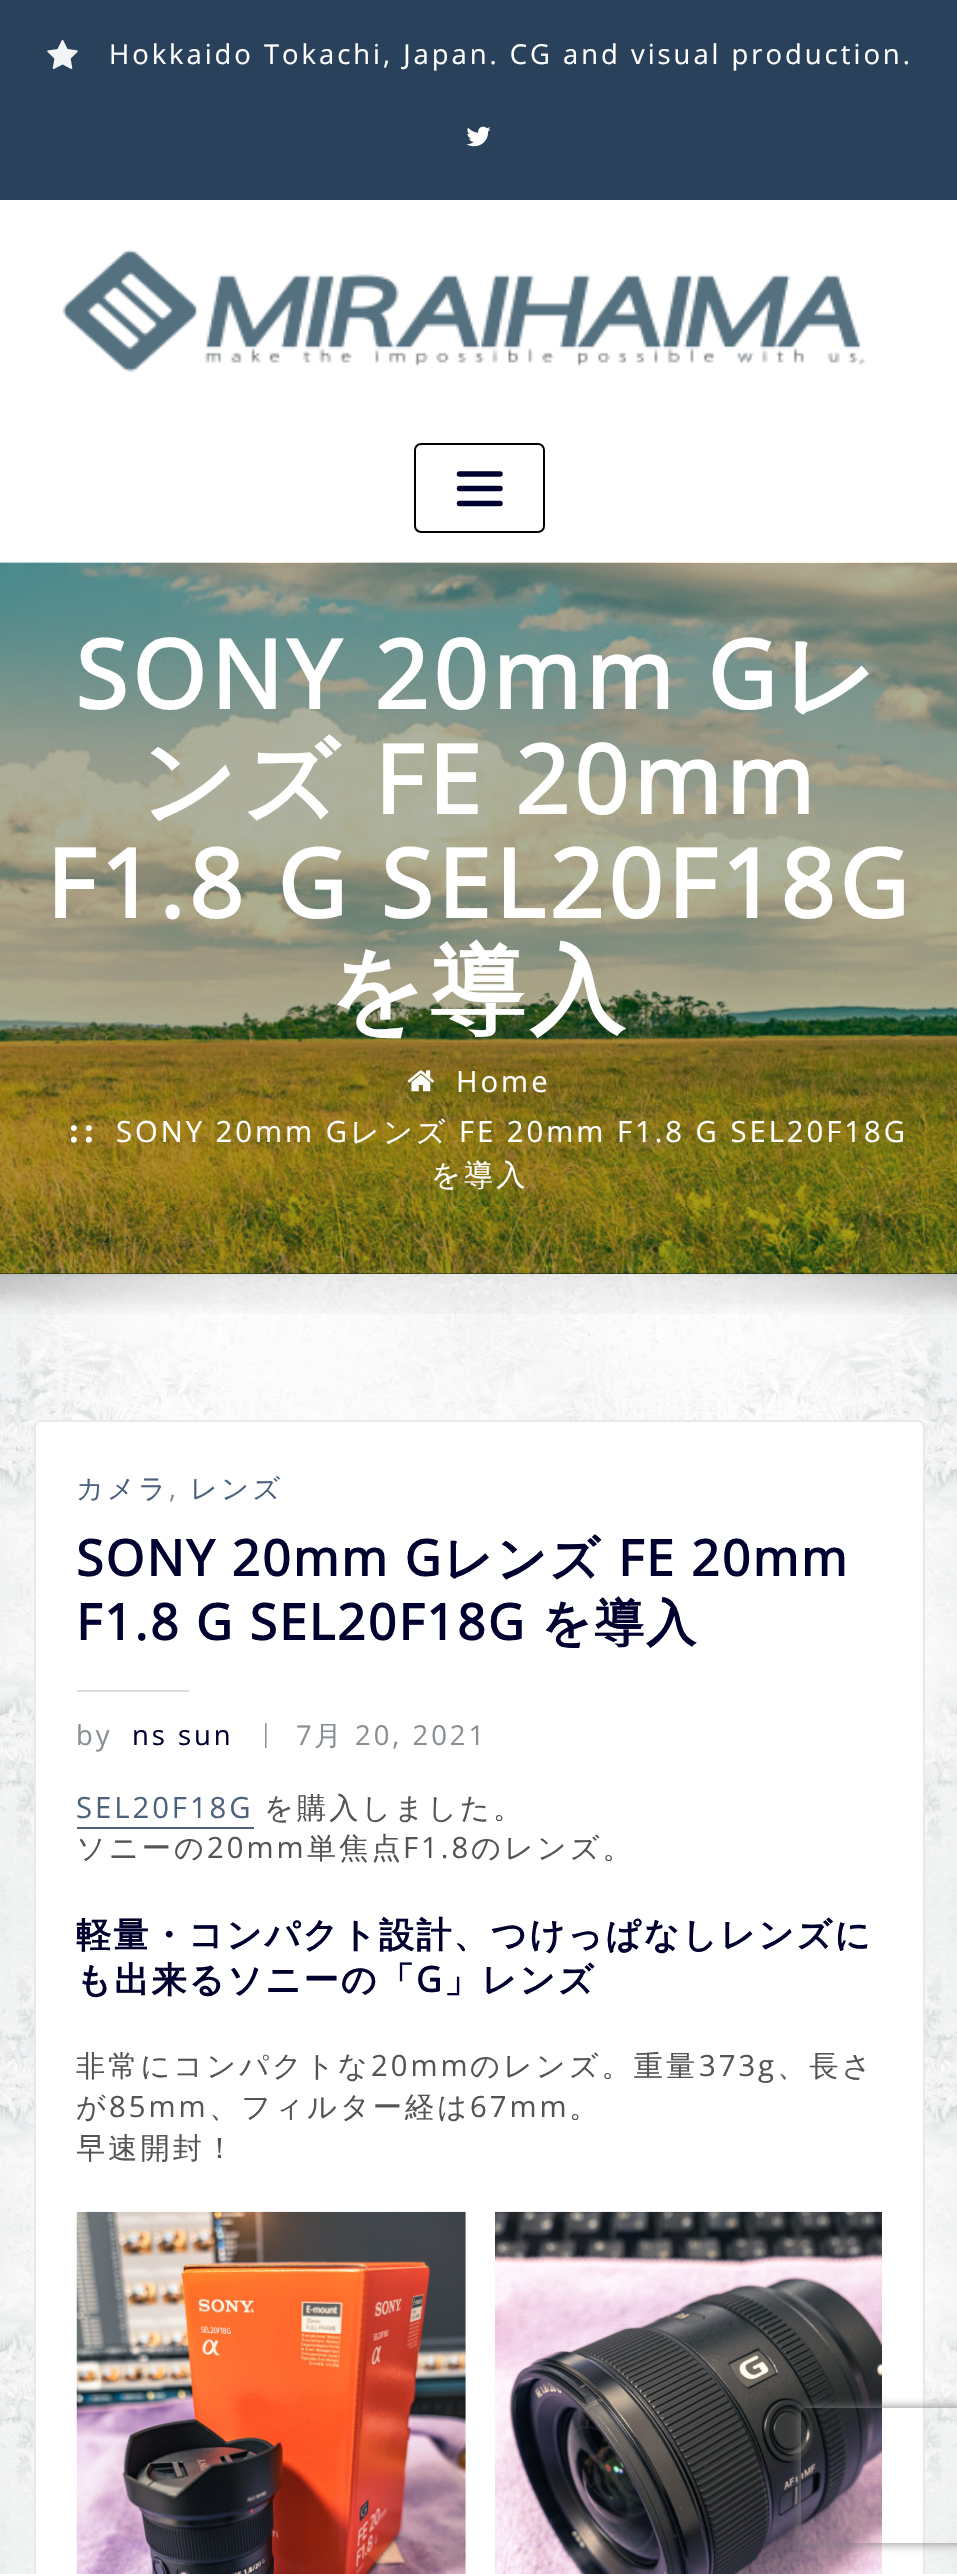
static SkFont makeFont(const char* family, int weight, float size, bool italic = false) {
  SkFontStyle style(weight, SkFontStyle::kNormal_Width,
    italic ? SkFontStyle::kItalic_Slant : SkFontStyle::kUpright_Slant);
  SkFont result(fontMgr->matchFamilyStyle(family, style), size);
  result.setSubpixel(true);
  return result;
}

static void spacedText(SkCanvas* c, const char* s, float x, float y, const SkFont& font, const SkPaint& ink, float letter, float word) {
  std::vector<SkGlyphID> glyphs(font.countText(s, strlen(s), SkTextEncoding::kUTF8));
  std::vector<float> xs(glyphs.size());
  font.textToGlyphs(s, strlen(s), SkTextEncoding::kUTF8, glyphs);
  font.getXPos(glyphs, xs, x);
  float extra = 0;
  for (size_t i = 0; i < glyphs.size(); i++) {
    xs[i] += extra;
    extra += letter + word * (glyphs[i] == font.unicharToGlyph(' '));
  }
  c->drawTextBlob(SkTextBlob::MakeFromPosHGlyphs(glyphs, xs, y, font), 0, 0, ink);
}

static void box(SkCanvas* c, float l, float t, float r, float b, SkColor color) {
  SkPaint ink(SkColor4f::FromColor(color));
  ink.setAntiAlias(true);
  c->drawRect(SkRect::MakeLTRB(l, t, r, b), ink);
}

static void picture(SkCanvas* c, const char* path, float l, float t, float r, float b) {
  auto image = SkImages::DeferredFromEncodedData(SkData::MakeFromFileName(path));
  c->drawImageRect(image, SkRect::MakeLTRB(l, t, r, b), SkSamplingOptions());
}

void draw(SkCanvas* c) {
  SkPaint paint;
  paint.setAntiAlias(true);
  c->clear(0xffffffff);
  picture(c, "img_01.png", 0, 1274, 957, 2574);
  box(c, 0, 0, 957, 200, 0xff2a415b);
  picture(c, "img_02.png", 47, 39, 78, 69);
  SkFont face1 = makeFont("Open Sans", 400, 27.45f);
  paint.setColor(0xffffffff);
  spacedText(c, "Hokkaido Tokachi, Japan. CG and visual production.", 109, 64, face1, paint, 2.97f, 0);
  picture(c, "img_03.png", 466, 126, 491, 147);
  picture(c, "img_04.png", 62, 249, 865, 372);
  paint.setStyle(SkPaint::kStroke_Style);
  paint.setStrokeWidth(2);
  paint.setColor(0xff000000);
  c->drawRoundRect(SkRect::MakeLTRB(415, 444, 544, 532), 6, 6, paint);
  paint.setStrokeWidth(5.5f);
  paint.setStrokeCap(SkPaint::kRound_Cap);
  paint.setColor(0xff01012f);
  c->drawPath(SkPathBuilder().moveTo(459.5f, 474).lineTo(500, 474).moveTo(459.5f, 488.5f).lineTo(500, 488.5f).moveTo(459.5f, 503.5f).lineTo(500, 503.5f).detach(), paint);
  box(c, 0, 1273, 957, 1274, 0xff17212c);
  picture(c, "img_05.png", 0, 562, 957, 1274);
  box(c, 0, 563, 957, 1274, 0x52002d2d);
  SkFont face2 = makeFont("Open Sans", 700, 95);
  paint.setStyle(SkPaint::kFill_Style);
  paint.setColor(0xffffffff);
  spacedText(c, "SONY 20mm G", 75, 709, face2, paint, 4.75f, 0);
  SkFont face3 = makeFont("WenQuanYi Zen Hei", 700, 95);
  spacedText(c, "レ", 781, 709, face3, paint, 4.75f, 0);
  spacedText(c, "ンズ", 140, 814, face3, paint, 4.75f, 0);
  spacedText(c, "FE 20mm", 374, 814, face2, paint, 4.75f, 0);
  spacedText(c, "F1.8 G SEL20F18G", 46, 918, face2, paint, 4.75f, 0);
  spacedText(c, "を導入", 328, 1023, face3, paint, 4.75f, 0);
  picture(c, "img_06.png", 407, 1070, 434, 1092);
  SkFont face4 = makeFont("Open Sans", 400, 29.25f);
  spacedText(c, "Home", 456, 1092, face4, paint, 2.97f, 0);
  SkFont face5 = makeFont("Liberation Serif", 700, 36);
  spacedText(c, "::", 68, 1142, face5, paint, 3, 0);
  spacedText(c, "SONY 20mm G", 116, 1142, face4, paint, 2.97f, 0);
  SkFont face6 = makeFont("WenQuanYi Zen Hei", 500, 29.25f);
  spacedText(c, "レンズ", 350, 1142, face6, paint, 2.97f, 0);
  spacedText(c, "FE 20mm F1.8 G SEL20F18G", 459, 1142, face4, paint, 2.97f, 0);
  spacedText(c, "を導入", 431, 1185, face6, paint, 2.97f, 0);
  picture(c, "img_07.png", 0, 1273, 957, 1314);
  c->drawRoundRect(SkRect::MakeLTRB(35, 1421, 924, 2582), 6, 6, paint);
  paint.setStyle(SkPaint::kStroke_Style);
  paint.setStrokeWidth(2);
  paint.setStrokeCap(SkPaint::kButt_Cap);
  paint.setColor(0xffe9e9e9);
  c->drawRoundRect(SkRect::MakeLTRB(35, 1421, 924, 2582), 6, 6, paint);
  SkFont face7 = makeFont("WenQuanYi Zen Hei", 500, 27.45f);
  paint.setStyle(SkPaint::kFill_Style);
  paint.setColor(0xff4d627c);
  spacedText(c, "カメラ", 76, 1498, face7, paint, 2.97f, 0);
  paint.setColor(0xff878e94);
  spacedText(c, ",", 169, 1498, face1, paint, 2.97f, 0);
  paint.setColor(0xff4d627c);
  spacedText(c, "レンズ", 190, 1498, face7, paint, 2.97f, 0);
  SkFont face8 = makeFont("Open Sans", 700, 49.75f);
  paint.setColor(0xff01012f);
  spacedText(c, "SONY 20mm G", 76, 1576, face8, paint, 2.25f, 0);
  SkFont face9 = makeFont("WenQuanYi Zen Hei", 700, 49.75f);
  spacedText(c, "レンズ", 443, 1576, face9, paint, 2.25f, 0);
  spacedText(c, "FE 20mm", 618, 1576, face8, paint, 2.25f, 0);
  spacedText(c, "F1.8 G SEL20F18G", 76, 1640, face8, paint, 2.25f, 0);
  spacedText(c, "を導入", 541, 1640, face9, paint, 2.25f, 0);
  box(c, 77, 1690, 189, 1692, 0xffdddddd);
  paint.setColor(0xff878e94);
  spacedText(c, "by", 76, 1745, face1, paint, 2.97f, 0);
  paint.setColor(0xff01012f);
  spacedText(c, "ns sun", 132, 1745, face1, paint, 2.97f, 0);
  SkFont face10 = makeFont("Liberation Serif", 400, 27.45f);
  paint.setColor(0xff878e94);
  spacedText(c, "|", 263, 1742, face10, paint, 2.97f, 0);
  spacedText(c, "7", 296, 1745, face1, paint, 2.97f, 0);
  spacedText(c, "月", 314, 1745, face7, paint, 2.97f, 0);
  spacedText(c, "20, 2021", 355, 1745, face1, paint, 2.97f, 0);
  paint.setColor(0xff4d627c);
  spacedText(c, "SEL20F18G", 76, 1818, face4, paint, 2.97f, 0);
  box(c, 77, 1827, 254, 1829, 0xff4d627c);
  paint.setColor(0xff545454);
  spacedText(c, "を購入しました。", 264, 1818, face6, paint, 2.97f, 0);
  spacedText(c, "ソニーの", 76, 1858, face6, paint, 2.97f, 0);
  spacedText(c, "20mm", 207, 1858, face4, paint, 2.97f, 0);
  spacedText(c, "単焦点", 307, 1858, face6, paint, 2.97f, 0);
  spacedText(c, "F1.8", 403, 1858, face4, paint, 2.97f, 0);
  spacedText(c, "のレンズ。", 471, 1858, face6, paint, 2.97f, 0);
  SkFont face11 = makeFont("WenQuanYi Zen Hei", 700, 35.1f);
  paint.setColor(0xff01012f);
  spacedText(c, "軽量・コンパクト設計、つけっぱなしレンズに", 76, 1947, face11, paint, 2.25f, 0);
  spacedText(c, "も出来るソニーの「", 76, 1992, face11, paint, 2.25f, 0);
  SkFont face12 = makeFont("Open Sans", 700, 35.1f);
  spacedText(c, "G", 416, 1992, face12, paint, 2.25f, 0);
  spacedText(c, "」レンズ", 444, 1992, face11, paint, 2.25f, 0);
  paint.setColor(0xff545454);
  spacedText(c, "非常にコンパクトな", 76, 2076, face6, paint, 2.97f, 0);
  spacedText(c, "20mm", 371, 2076, face4, paint, 2.97f, 0);
  spacedText(c, "のレンズ。重量", 470, 2076, face6, paint, 2.97f, 0);
  spacedText(c, "373g", 699, 2076, face4, paint, 2.97f, 0);
  spacedText(c, "、長さ", 777, 2076, face6, paint, 2.97f, 0);
  spacedText(c, "が", 76, 2117, face6, paint, 2.97f, 0);
  spacedText(c, "85mm", 109, 2117, face4, paint, 2.97f, 0);
  spacedText(c, "、フィルター経は", 209, 2117, face6, paint, 2.97f, 0);
  spacedText(c, "67mm", 470, 2117, face4, paint, 2.97f, 0);
  spacedText(c, "。", 569, 2117, face6, paint, 2.97f, 0);
  c->save();
  c->clipRect(SkRect::MakeLTRB(77, 1787, 882, 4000));
  spacedText(c, "早速開封！", 76, 2158, face6, paint, 2.97f, 0);
  c->restore();
  picture(c, "img_08.png", 76, 2211, 466, 2574);
  picture(c, "img_09.png", 495, 2211, 882, 2574);
  c->save();
  c->clipPath(SkPathBuilder(SkPathFillType::kEvenOdd).moveTo(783, 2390).lineTo(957, 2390).lineTo(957, 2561).lineTo(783, 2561).close().moveTo(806, 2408).lineTo(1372, 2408).cubicTo(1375, 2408, 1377, 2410, 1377, 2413).lineTo(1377, 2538).cubicTo(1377, 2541, 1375, 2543, 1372, 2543).lineTo(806, 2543).cubicTo(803, 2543, 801, 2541, 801, 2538).lineTo(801, 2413).cubicTo(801, 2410, 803, 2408, 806, 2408).close().detach(), true);
  paint.setColor(0xff808080);
  paint.setMaskFilter(SkMaskFilter::MakeBlur(kNormal_SkBlurStyle, 5.5f));
  c->drawRoundRect(SkRect::MakeLTRB(801, 2408, 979, 2543), 5, 5, paint);
  paint.setMaskFilter(nullptr);
  c->restore();
}
